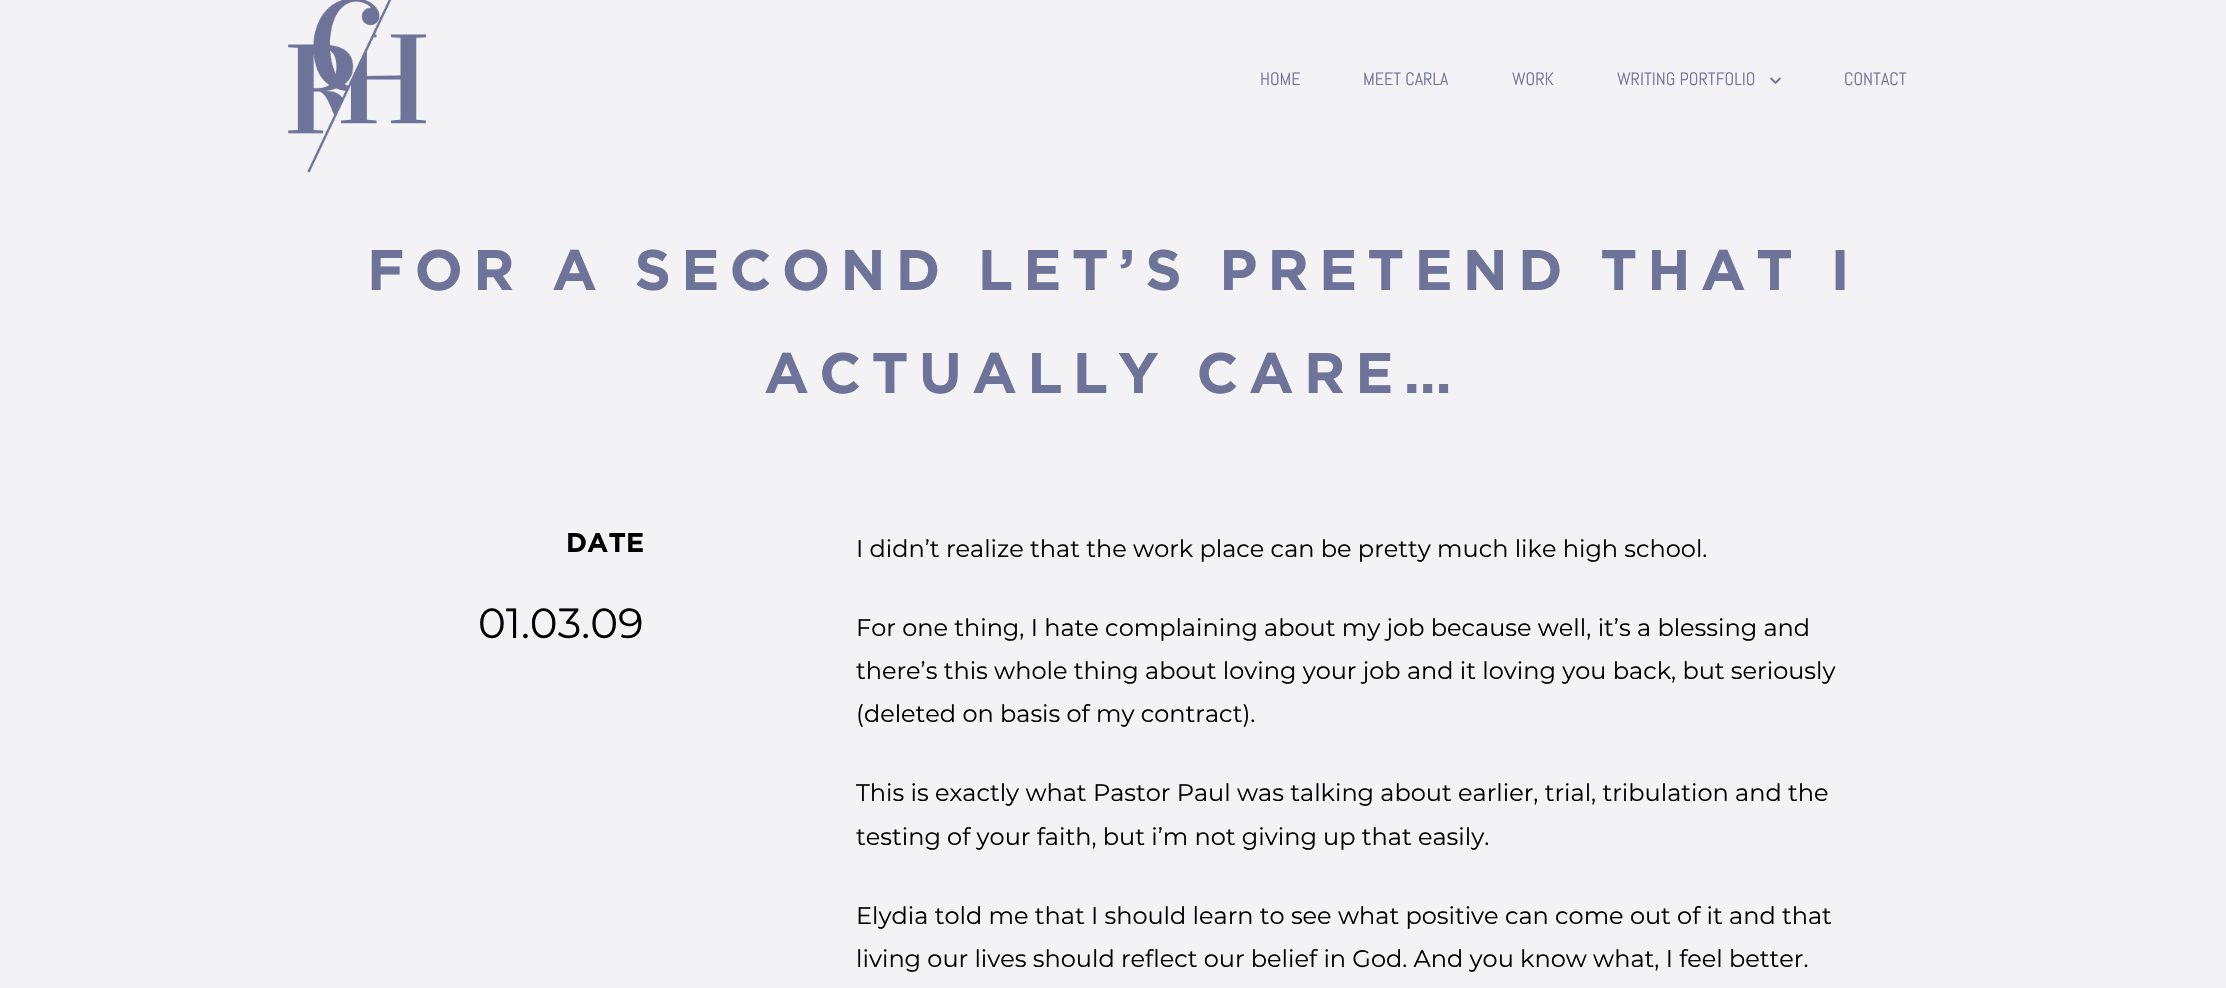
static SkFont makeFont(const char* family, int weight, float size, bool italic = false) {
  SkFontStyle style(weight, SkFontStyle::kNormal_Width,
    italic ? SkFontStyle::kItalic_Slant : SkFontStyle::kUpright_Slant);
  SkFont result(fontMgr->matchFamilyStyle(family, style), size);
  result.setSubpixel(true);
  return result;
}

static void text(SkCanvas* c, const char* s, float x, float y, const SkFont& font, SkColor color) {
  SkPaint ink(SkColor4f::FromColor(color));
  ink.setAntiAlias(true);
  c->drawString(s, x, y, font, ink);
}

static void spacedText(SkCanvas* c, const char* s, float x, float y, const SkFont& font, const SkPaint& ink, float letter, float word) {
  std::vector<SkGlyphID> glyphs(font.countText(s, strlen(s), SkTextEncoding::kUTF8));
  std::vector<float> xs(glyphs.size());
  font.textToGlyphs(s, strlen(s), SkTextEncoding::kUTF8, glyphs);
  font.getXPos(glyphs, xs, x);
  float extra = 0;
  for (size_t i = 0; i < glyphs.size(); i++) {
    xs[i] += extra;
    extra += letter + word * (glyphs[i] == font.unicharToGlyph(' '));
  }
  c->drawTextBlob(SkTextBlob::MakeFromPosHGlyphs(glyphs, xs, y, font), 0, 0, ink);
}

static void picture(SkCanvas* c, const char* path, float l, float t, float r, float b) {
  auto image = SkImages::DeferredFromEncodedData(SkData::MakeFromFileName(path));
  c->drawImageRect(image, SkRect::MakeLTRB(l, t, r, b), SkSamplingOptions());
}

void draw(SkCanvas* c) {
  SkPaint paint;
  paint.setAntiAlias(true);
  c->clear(0xfff3f3f5);
  picture(c, "img_01.png", 288, 0, 426, 173);
  SkFont face1 = makeFont("Abel", 400, 18);
  text(c, "HOME", 1260, 85, face1, 0xff6e7399);
  text(c, "MEET CARLA", 1363, 85, face1, 0xff6e7399);
  text(c, "WORK", 1512, 85, face1, 0xff6e7399);
  text(c, "WRITING PORTFOLIO", 1617, 85, face1, 0xff6e7399);
  picture(c, "img_02.png", 1770, 77, 1781, 84);
  text(c, "CONTACT", 1844, 85, face1, 0xff6e7399);
  SkFont face2 = makeFont("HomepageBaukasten", 700, 57);
  paint.setColor(0xff6e7399);
  spacedText(c, "FOR A SECOND LET’S PRETEND THAT I", 367, 290, face2, paint, 10.2f, 0);
  spacedText(c, "ACTUALLY CARE…", 764, 393, face2, paint, 10.2f, 0);
  SkFont face3 = makeFont("HomepageBaukasten", 700, 27);
  text(c, "DATE", 566, 552, face3, 0xff000000);
  SkFont face4 = makeFont("Montserrat", 400, 42);
  text(c, "01.03.09", 478, 638, face4, 0xff000000);
  SkFont face5 = makeFont("Montserrat", 400, 24);
  text(c, "I didn’t realize that the work place can be pretty much like high school.", 856, 557, face5, 0xff000000);
  text(c, "For one thing, I hate complaining about my job because well, it’s a blessing and", 856, 636, face5, 0xff000000);
  text(c, "there’s this whole thing about loving your job and it loving you back, but seriously", 856, 679, face5, 0xff000000);
  text(c, "(deleted on basis of my contract).", 856, 722, face5, 0xff000000);
  text(c, "This is exactly what Pastor Paul was talking about earlier, trial, tribulation and the", 856, 801, face5, 0xff000000);
  text(c, "testing of your faith, but i’m not giving up that easily.", 856, 845, face5, 0xff000000);
  text(c, "Elydia told me that I should learn to see what positive can come out of it and that", 856, 924, face5, 0xff000000);
  text(c, "living our lives should reflect our belief in God. And you know what, I feel better.", 856, 967, face5, 0xff000000);
}
